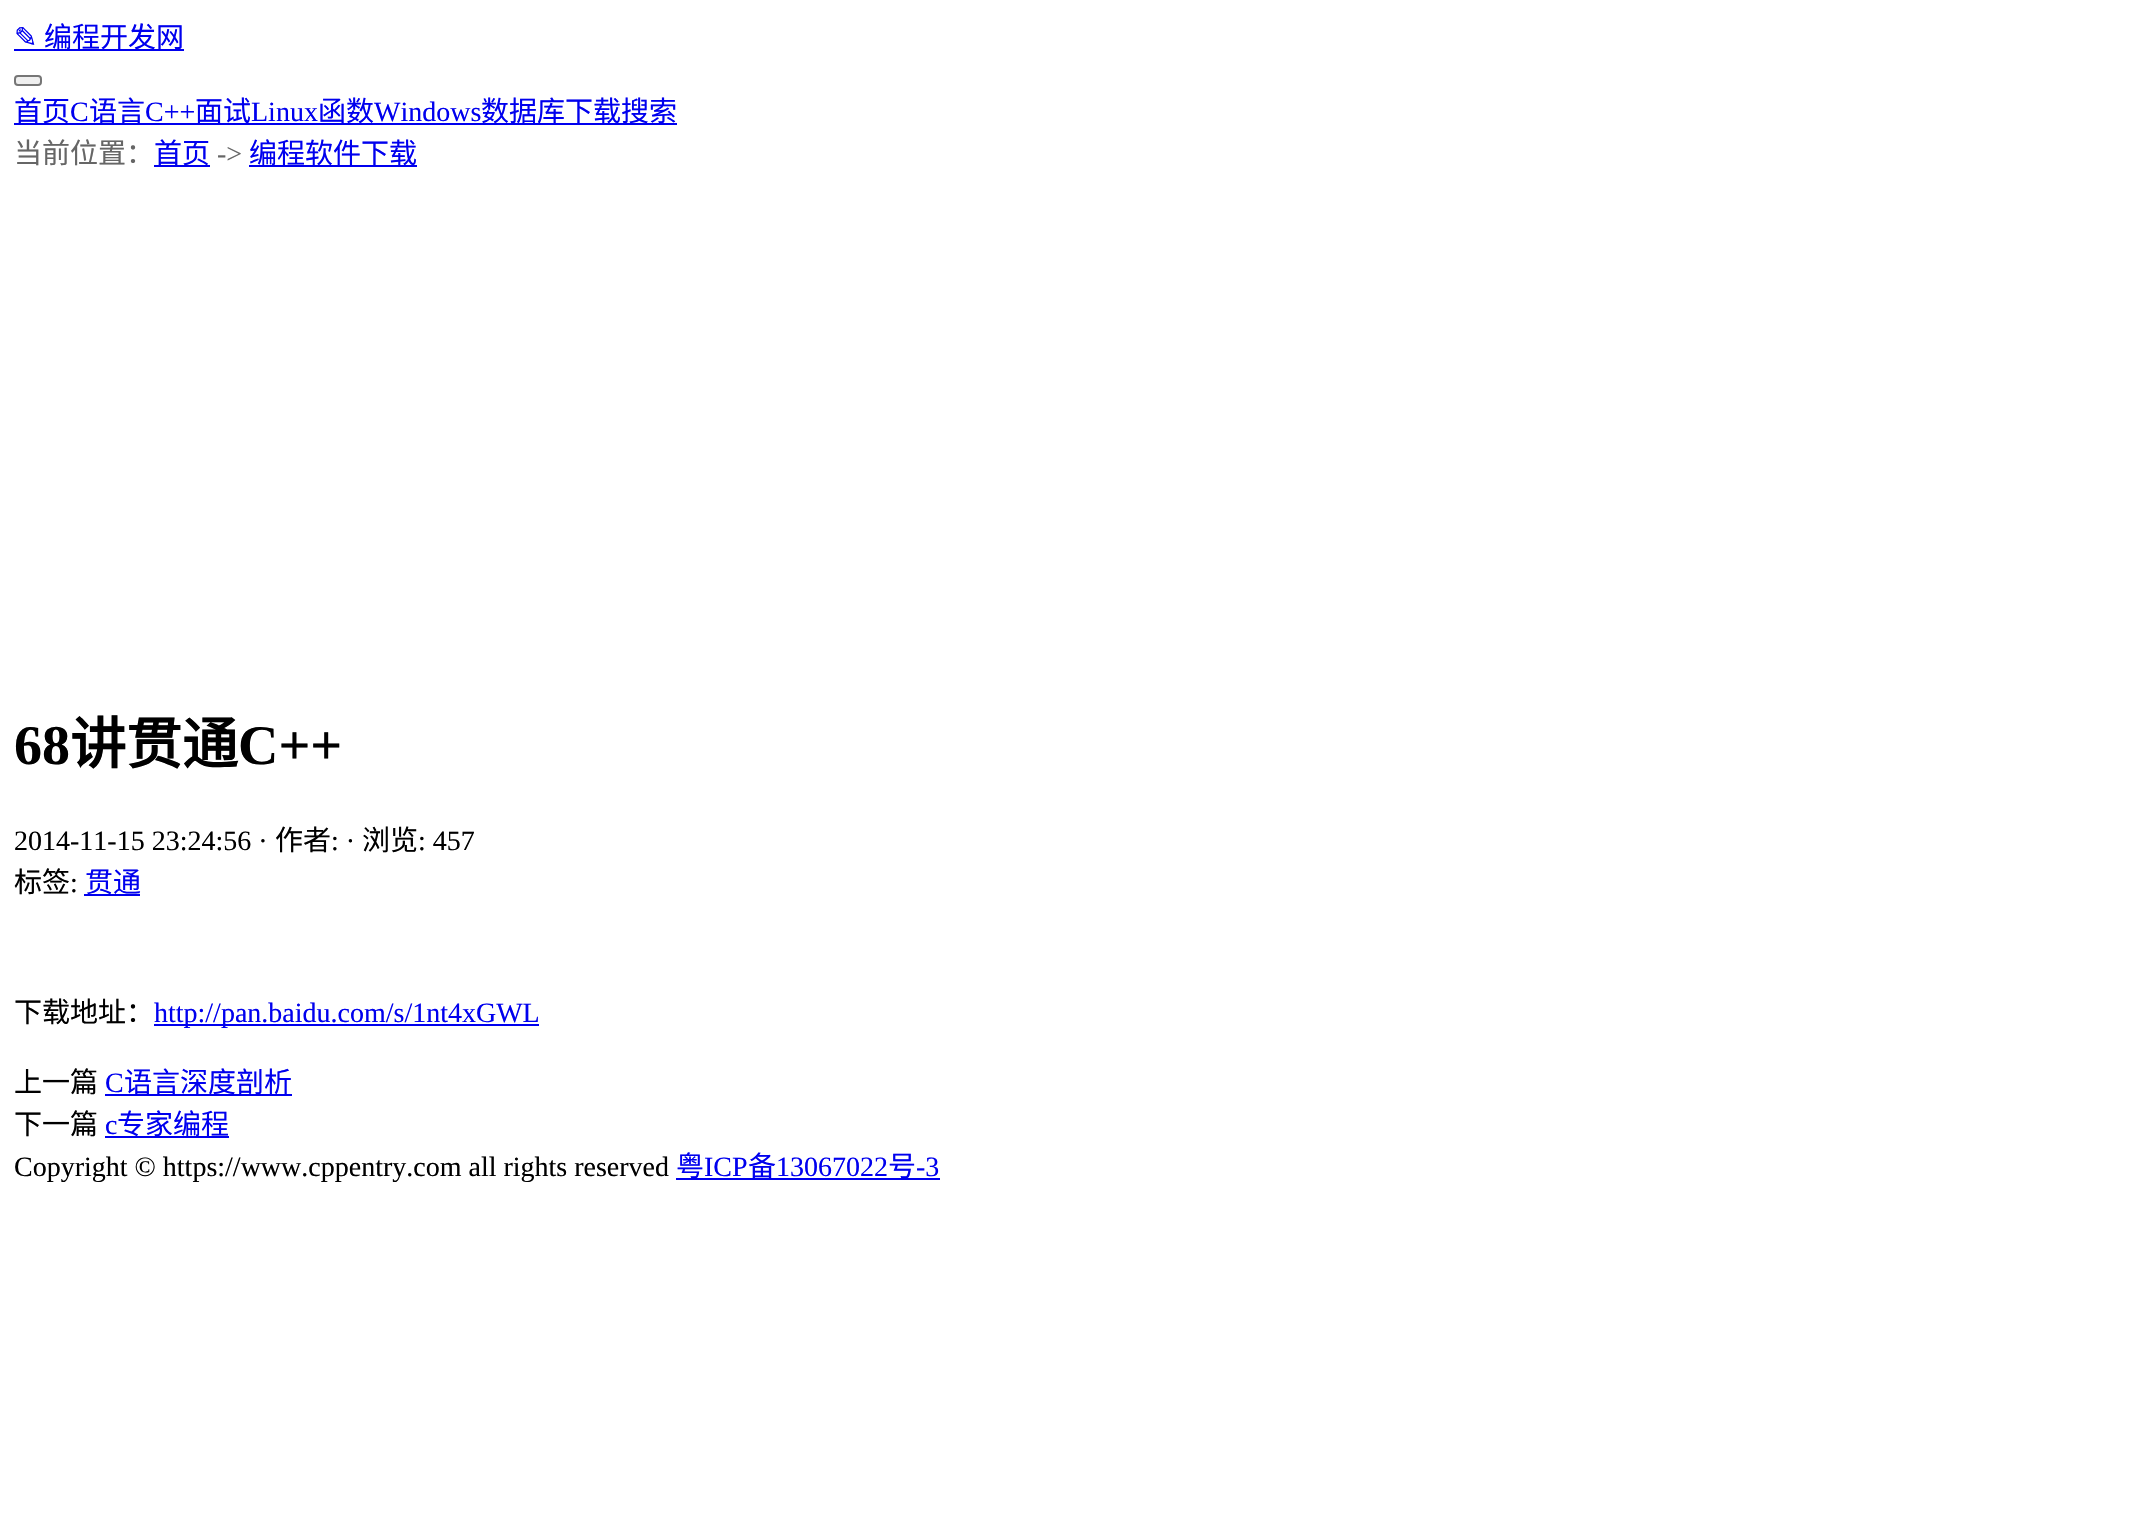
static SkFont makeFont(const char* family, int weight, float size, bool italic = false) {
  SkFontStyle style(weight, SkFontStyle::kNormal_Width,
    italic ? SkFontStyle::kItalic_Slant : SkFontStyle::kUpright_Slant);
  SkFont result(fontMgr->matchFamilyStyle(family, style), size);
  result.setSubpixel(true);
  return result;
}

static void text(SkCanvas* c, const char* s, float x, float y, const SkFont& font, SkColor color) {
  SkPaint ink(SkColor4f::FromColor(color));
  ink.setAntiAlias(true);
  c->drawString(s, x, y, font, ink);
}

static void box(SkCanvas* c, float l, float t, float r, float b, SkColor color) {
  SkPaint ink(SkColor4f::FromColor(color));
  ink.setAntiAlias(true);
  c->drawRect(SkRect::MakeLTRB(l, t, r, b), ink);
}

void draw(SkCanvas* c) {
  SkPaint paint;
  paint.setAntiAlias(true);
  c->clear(0xffffffff);
  SkFont face1 = makeFont("DejaVu Sans", 400, 28);
  text(c, "✎", 14, 47, face1, 0xff0000ee);
  box(c, 14, 49, 184, 51, 0xff0000ee);
  SkFont face2 = makeFont("Noto Sans CJK SC", 400, 28);
  text(c, "编程开发网", 44, 47, face2, 0xff0000ee);
  paint.setColor(0xffefefef);
  c->drawRoundRect(SkRect::MakeLTRB(15, 76, 41, 85), 3, 3, paint);
  paint.setStyle(SkPaint::kStroke_Style);
  paint.setStrokeWidth(2);
  paint.setColor(0xff767676);
  c->drawRoundRect(SkRect::MakeLTRB(15, 76, 41, 85), 3, 3, paint);
  box(c, 14, 123, 250, 125, 0xff0000ee);
  text(c, "首页", 14, 121, face2, 0xff0000ee);
  SkFont face3 = makeFont("Liberation Serif", 400, 28);
  text(c, "C", 70, 121, face3, 0xff0000ee);
  text(c, "语言", 89, 121, face2, 0xff0000ee);
  text(c, "C++", 145, 121, face3, 0xff0000ee);
  text(c, "面试", 195, 121, face2, 0xff0000ee);
  text(c, "Linux", 251, 121, face3, 0xff0000ee);
  box(c, 250, 123, 677, 125, 0xff0000ee);
  text(c, "函数", 318, 121, face2, 0xff0000ee);
  text(c, "Windows", 374, 121, face3, 0xff0000ee);
  text(c, "数据库下载搜索", 481, 121, face2, 0xff0000ee);
  text(c, "当前位置：", 14, 163, face2, 0xff666666);
  box(c, 154, 165, 210, 167, 0xff0000ee);
  text(c, "首页", 154, 163, face2, 0xff0000ee);
  text(c, "->", 217, 163, face3, 0xff666666);
  box(c, 249, 165, 417, 167, 0xff0000ee);
  text(c, "编程软件下载", 249, 163, face2, 0xff0000ee);
  SkFont face4 = makeFont("Liberation Serif", 700, 56);
  text(c, "68", 14, 764, face4, 0xff000000);
  SkFont face5 = makeFont("Noto Sans CJK SC", 700, 56);
  text(c, "讲贯通", 70, 764, face5, 0xff000000);
  text(c, "C++", 238, 764, face4, 0xff000000);
  text(c, "2014-11-15 23:24:56 ·", 14, 850, face3, 0xff000000);
  text(c, "作者", 275, 850, face2, 0xff000000);
  text(c, ": ·", 331, 850, face3, 0xff000000);
  text(c, "浏览", 362, 850, face2, 0xff000000);
  text(c, ": 457", 418, 850, face3, 0xff000000);
  text(c, "标签", 14, 892, face2, 0xff000000);
  text(c, ":", 70, 892, face3, 0xff000000);
  box(c, 84, 894, 140, 896, 0xff0000ee);
  text(c, "贯通", 85, 892, face2, 0xff0000ee);
  text(c, "下载地址：", 14, 1022, face2, 0xff000000);
  box(c, 154, 1024, 539, 1026, 0xff0000ee);
  text(c, "http://pan.baidu.com/s/1nt4xGWL", 154, 1022, face3, 0xff0000ee);
  text(c, "上一篇", 14, 1092, face2, 0xff000000);
  text(c, "C", 105, 1092, face3, 0xff0000ee);
  box(c, 105, 1094, 292, 1096, 0xff0000ee);
  text(c, "语言深度剖析", 124, 1092, face2, 0xff0000ee);
  text(c, "下一篇", 14, 1134, face2, 0xff000000);
  text(c, "c", 105, 1134, face3, 0xff0000ee);
  box(c, 105, 1136, 229, 1138, 0xff0000ee);
  text(c, "专家编程", 117, 1134, face2, 0xff0000ee);
  text(c, "Copyright © https://www.cppentry.com all rights reserved", 14, 1176, face3, 0xff000000);
  text(c, "粤", 676, 1176, face2, 0xff0000ee);
  text(c, "ICP", 704, 1176, face3, 0xff0000ee);
  box(c, 676, 1178, 940, 1180, 0xff0000ee);
  text(c, "备", 748, 1176, face2, 0xff0000ee);
  text(c, "13067022", 776, 1176, face3, 0xff0000ee);
  text(c, "号", 888, 1176, face2, 0xff0000ee);
  text(c, "-3", 916, 1176, face3, 0xff0000ee);
}
